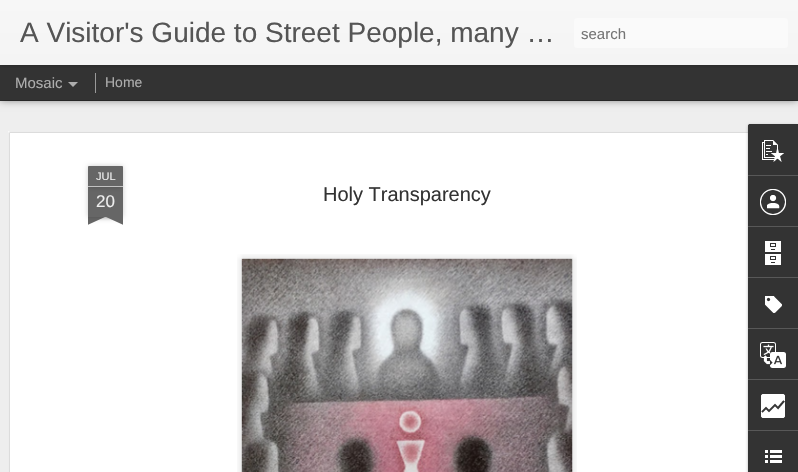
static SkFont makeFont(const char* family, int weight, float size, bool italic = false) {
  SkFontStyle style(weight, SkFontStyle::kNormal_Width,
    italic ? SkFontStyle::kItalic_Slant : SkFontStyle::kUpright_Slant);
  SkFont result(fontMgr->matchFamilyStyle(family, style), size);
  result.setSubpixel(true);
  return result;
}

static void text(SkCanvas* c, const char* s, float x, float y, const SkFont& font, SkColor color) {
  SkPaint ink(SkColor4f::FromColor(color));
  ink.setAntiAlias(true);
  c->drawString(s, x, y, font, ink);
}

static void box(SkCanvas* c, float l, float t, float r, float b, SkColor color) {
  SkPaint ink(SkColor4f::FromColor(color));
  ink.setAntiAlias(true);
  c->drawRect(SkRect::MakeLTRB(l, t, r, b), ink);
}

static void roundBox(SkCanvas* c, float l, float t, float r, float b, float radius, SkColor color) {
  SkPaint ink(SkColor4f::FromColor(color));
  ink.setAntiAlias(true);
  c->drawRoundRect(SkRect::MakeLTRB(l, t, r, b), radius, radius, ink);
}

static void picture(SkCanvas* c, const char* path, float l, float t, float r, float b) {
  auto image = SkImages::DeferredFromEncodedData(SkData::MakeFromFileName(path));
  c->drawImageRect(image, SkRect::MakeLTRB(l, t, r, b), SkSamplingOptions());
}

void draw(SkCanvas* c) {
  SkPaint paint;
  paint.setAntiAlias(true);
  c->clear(0xff333333);
  box(c, 0, 101, 798, 472, 0xffeeeeee);
  paint.setColor(0x80000000);
  paint.setMaskFilter(SkMaskFilter::MakeBlur(kNormal_SkBlurStyle, 4));
  c->drawRect(SkRect::MakeLTRB(0, 65, 798, 100), paint);
  paint.setMaskFilter(nullptr);
  box(c, 0, 65, 798, 100, 0xff333333);
  box(c, 95, 73, 96, 93, 0xff999999);
  paint.setColor(0x4d000000);
  paint.setMaskFilter(SkMaskFilter::MakeBlur(kNormal_SkBlurStyle, 2.5f));
  c->drawRect(SkRect::MakeLTRB(0, 0, 798, 65), paint);
  paint.setMaskFilter(nullptr);
  {
    const SkColor colors[] = {0xfff7f7f7, 0xfff4f4f4};
    const float stops[] = {0, 1};
    const SkPoint ends[] = {{0, 0}, {0, 65}};
    paint.setShader(SkGradientShader::MakeLinear(ends, colors, stops, 2, SkTileMode::kClamp));
    paint.setAlpha(255);
  }
  c->drawRect(SkRect::MakeLTRB(0, 0, 798, 65), paint);
  SkFont face1 = makeFont("Liberation Sans", 400, 28);
  text(c, "A Visitor's Guide to Street People, many …", 20, 42, face1, 0xff555555);
  roundBox(c, 574, 18, 788, 48, 3, 0xfffafafa);
  SkFont face2 = makeFont("Liberation Sans", 400, 15);
  text(c, "search", 581, 39, face2, 0xff757575);
  text(c, "Mosaic", 15, 88, face2, 0xffadadad);
  paint.setShader(nullptr);
  paint.setColor(0xffadadad);
  c->drawPath(SkPathBuilder().moveTo(68, 82).lineTo(78, 82).lineTo(73, 87).close().detach(), paint);
  SkFont face3 = makeFont("Liberation Sans", 400, 14);
  text(c, "Home", 105, 87, face3, 0xffadadad);
  box(c, 8, 131, 748, 472, 0xffffffff);
  picture(c, "img_01.png", 8, 131, 748, 472);
  paint.setColor(0x33000000);
  paint.setMaskFilter(SkMaskFilter::MakeBlur(kNormal_SkBlurStyle, 2.5f));
  c->drawRect(SkRect::MakeLTRB(88, 187, 123, 217), paint);
  paint.setMaskFilter(nullptr);
  box(c, 88, 187, 123, 217, 0xff666666);
  paint.setMaskFilter(SkMaskFilter::MakeBlur(kNormal_SkBlurStyle, 2.5f));
  c->drawRoundRect(SkRect::MakeLTRB(88, 166, 123, 187), 1, 1, paint);
  paint.setMaskFilter(nullptr);
  paint.setColor(0xff666666);
  c->drawPath(SkPathBuilder().moveTo(89, 166).lineTo(122, 166).cubicTo(122.5f, 166, 123, 166.5f, 123, 167).lineTo(123, 187).lineTo(88, 187).lineTo(88, 167).cubicTo(88, 166.5f, 88.5f, 166, 89, 166).close().detach(), paint);
  box(c, 88, 186, 123, 187, 0xffc2c2c2);
  SkFont face4 = makeFont("Liberation Sans", 400, 11);
  text(c, "JUL", 96, 180, face4, 0xffeeeeee);
  SkFont face5 = makeFont("Liberation Sans", 400, 17);
  text(c, "20", 96, 207, face5, 0xffeeeeee);
  c->save();
  c->clipRect(SkRect::MakeLTRB(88, 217, 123, 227));
  paint.setColor(0x33000000);
  paint.setMaskFilter(SkMaskFilter::MakeBlur(kNormal_SkBlurStyle, 2.5f));
  c->drawRect(SkRect::MakeLTRB(79, 207, 129, 217), paint);
  paint.setMaskFilter(nullptr);
  c->restore();
  c->save();
  c->clipRect(SkRect::MakeLTRB(88, 217, 123, 227));
  paint.setColor(0xff666666);
  c->drawPath(SkPathBuilder().moveTo(79, 218).lineTo(125, 197).lineTo(129, 206).lineTo(83, 227).close().detach(), paint);
  c->restore();
  c->save();
  c->clipRect(SkRect::MakeLTRB(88, 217, 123, 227));
  paint.setColor(0x33000000);
  paint.setMaskFilter(SkMaskFilter::MakeBlur(kNormal_SkBlurStyle, 2.5f));
  c->drawRect(SkRect::MakeLTRB(82, 207, 132, 217), paint);
  paint.setMaskFilter(nullptr);
  c->restore();
  c->save();
  c->clipRect(SkRect::MakeLTRB(88, 217, 123, 227));
  paint.setColor(0xff666666);
  c->drawPath(SkPathBuilder().moveTo(86, 197).lineTo(132, 218).lineTo(128, 227).lineTo(82, 206).close().detach(), paint);
  c->restore();
  SkFont face6 = makeFont("Liberation Sans", 400, 20);
  text(c, "Holy Transparency", 323, 201, face6, 0xff333333);
  picture(c, "img_02.png", 237, 254, 577, 472);
  picture(c, "img_03.png", 241, 258, 573, 472);
  paint.setColor(0x4d000000);
  paint.setMaskFilter(SkMaskFilter::MakeBlur(kNormal_SkBlurStyle, 1.5f));
  c->drawRoundRect(SkRect::MakeLTRB(748, 125, 798, 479), 2, 2, paint);
  paint.setMaskFilter(nullptr);
  paint.setColor(0xff333333);
  c->drawPath(SkPathBuilder().moveTo(750, 124).lineTo(798, 124).lineTo(798, 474).lineTo(750, 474).cubicTo(749, 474, 748, 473, 748, 472).lineTo(748, 126).cubicTo(748, 125, 749, 124, 750, 124).close().detach(), paint);
  c->drawPath(SkPathBuilder().moveTo(750, 124).lineTo(798, 124).lineTo(798, 175).lineTo(748, 175).lineTo(748, 126).cubicTo(748, 125, 749, 124, 750, 124).close().detach(), paint);
  picture(c, "img_04.png", 762, 140, 784, 162);
  box(c, 748, 175, 798, 176, 0xff585858);
  picture(c, "img_05.png", 760, 189, 786, 215);
  box(c, 748, 226, 798, 227, 0xff585858);
  picture(c, "img_06.png", 765, 241, 781, 265);
  box(c, 748, 277, 798, 278, 0xff585858);
  picture(c, "img_07.png", 765, 296, 782, 313);
  box(c, 748, 328, 798, 329, 0xff585858);
  picture(c, "img_08.png", 760, 342, 786, 368);
  box(c, 748, 379, 798, 380, 0xff585858);
  picture(c, "img_09.png", 761, 394, 785, 418);
  box(c, 748, 430, 798, 431, 0xff585858);
  picture(c, "img_10.png", 765, 450, 782, 463);
}
